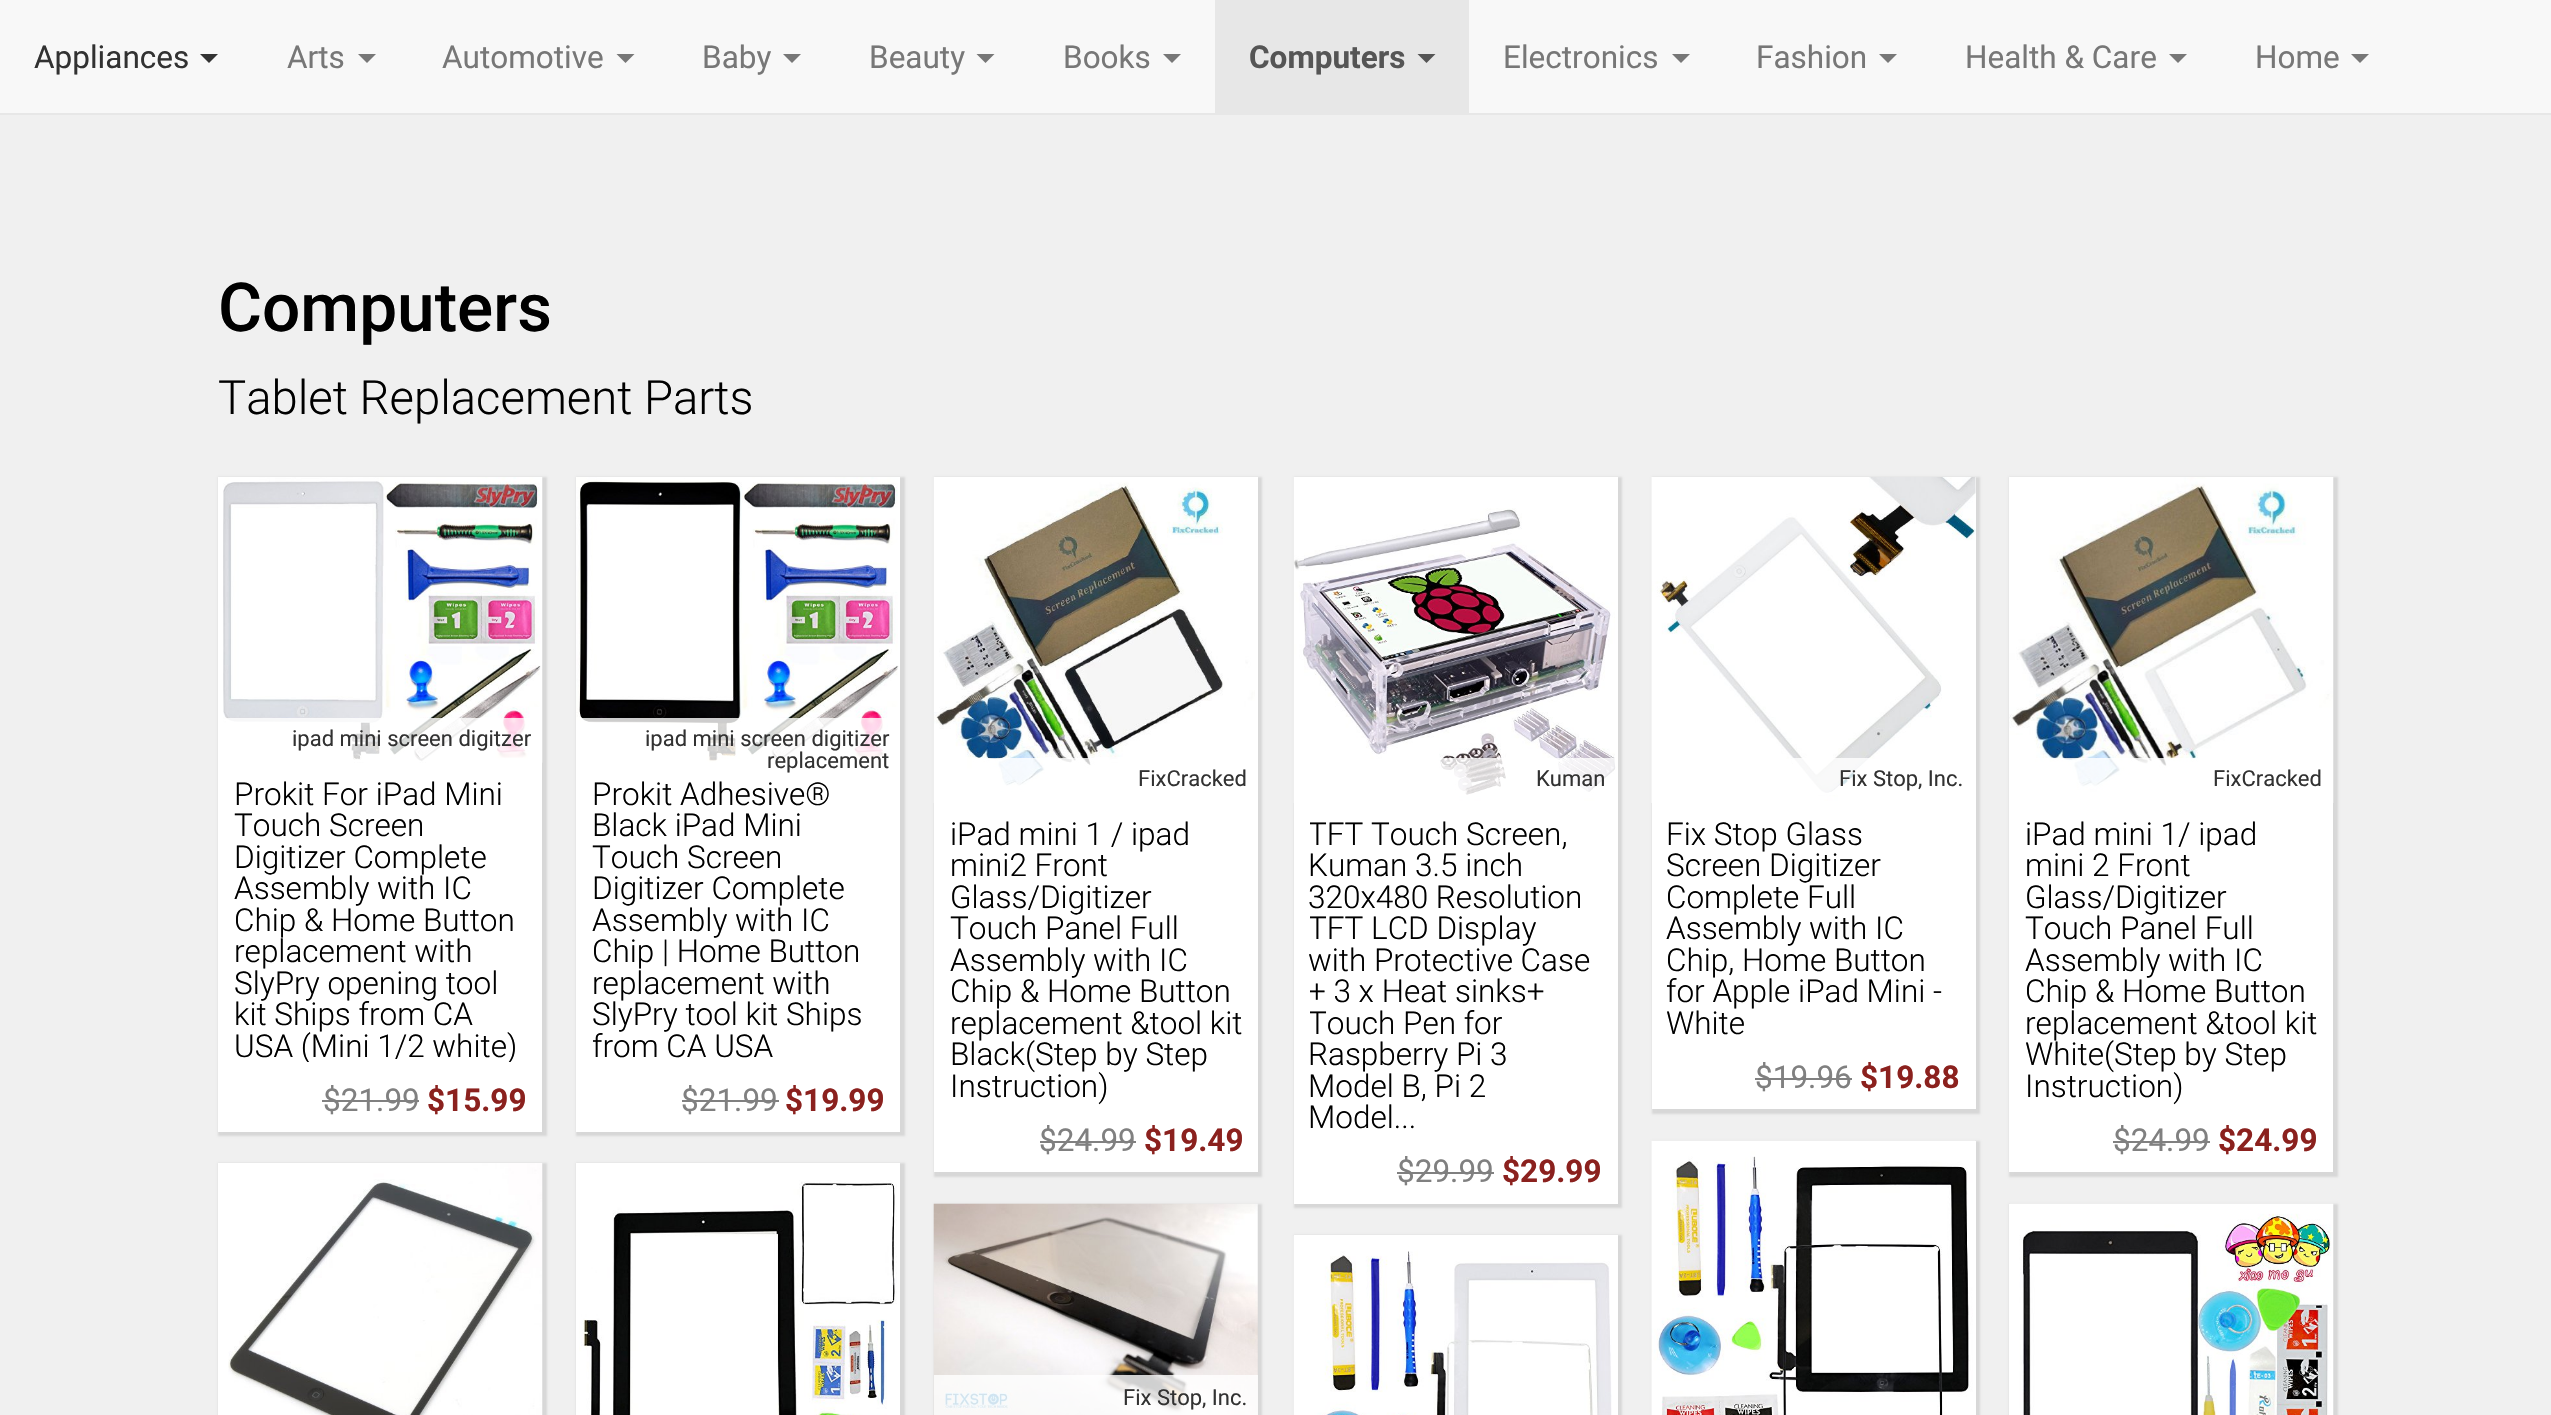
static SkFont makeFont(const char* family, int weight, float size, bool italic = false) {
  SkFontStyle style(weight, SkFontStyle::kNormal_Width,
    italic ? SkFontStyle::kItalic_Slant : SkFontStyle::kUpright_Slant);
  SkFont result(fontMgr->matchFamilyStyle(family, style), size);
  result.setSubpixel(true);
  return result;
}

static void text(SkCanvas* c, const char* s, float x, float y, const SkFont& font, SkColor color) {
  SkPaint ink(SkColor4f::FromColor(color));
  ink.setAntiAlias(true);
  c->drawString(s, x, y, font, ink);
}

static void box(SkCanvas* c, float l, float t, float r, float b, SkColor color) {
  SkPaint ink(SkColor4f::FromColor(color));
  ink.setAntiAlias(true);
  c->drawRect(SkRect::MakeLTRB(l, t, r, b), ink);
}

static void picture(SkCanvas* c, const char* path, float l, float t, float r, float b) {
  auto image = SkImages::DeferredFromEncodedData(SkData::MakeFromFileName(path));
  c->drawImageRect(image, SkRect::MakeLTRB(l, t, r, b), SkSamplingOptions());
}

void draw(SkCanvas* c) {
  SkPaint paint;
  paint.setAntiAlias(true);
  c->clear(0xfff0f0f0);
  box(c, 0, 0, 2551, 113, 0xfff8f8f8);
  box(c, 0, 113, 2551, 115, 0xffe7e7e7);
  SkFont face1 = makeFont("Roboto", 400, 31.5f);
  text(c, "Appliances", 34, 68, face1, 0xff323232);
  paint.setColor(0xff333333);
  c->drawPath(SkPathBuilder().moveTo(200, 54).lineTo(218, 54).lineTo(209, 63).close().detach(), paint);
  text(c, "Arts", 287, 68, face1, 0xff777777);
  paint.setColor(0xff777777);
  c->drawPath(SkPathBuilder().moveTo(358, 54).lineTo(376, 54).lineTo(367, 63).close().detach(), paint);
  text(c, "Automotive", 442, 68, face1, 0xff777777);
  c->drawPath(SkPathBuilder().moveTo(616.5f, 54).lineTo(634.5f, 54).lineTo(625.5f, 63).close().detach(), paint);
  text(c, "Baby", 702, 68, face1, 0xff777777);
  c->drawPath(SkPathBuilder().moveTo(783, 54).lineTo(801, 54).lineTo(792, 63).close().detach(), paint);
  text(c, "Beauty", 869, 68, face1, 0xff777777);
  c->drawPath(SkPathBuilder().moveTo(976.5f, 54).lineTo(994.5f, 54).lineTo(985.5f, 63).close().detach(), paint);
  text(c, "Books", 1063, 68, face1, 0xff777777);
  c->drawPath(SkPathBuilder().moveTo(1163, 54).lineTo(1181, 54).lineTo(1172, 63).close().detach(), paint);
  box(c, 1215, 0, 1469, 113, 0xffe7e7e7);
  SkFont face2 = makeFont("Roboto", 700, 31.5f);
  text(c, "Computers", 1249, 68, face2, 0xff555555);
  paint.setColor(0xff555555);
  c->drawPath(SkPathBuilder().moveTo(1417.5f, 54).lineTo(1435.5f, 54).lineTo(1426.5f, 63).close().detach(), paint);
  text(c, "Electronics", 1503, 68, face1, 0xff777777);
  paint.setColor(0xff777777);
  c->drawPath(SkPathBuilder().moveTo(1672, 54).lineTo(1690, 54).lineTo(1681, 63).close().detach(), paint);
  text(c, "Fashion", 1756, 68, face1, 0xff777777);
  c->drawPath(SkPathBuilder().moveTo(1879, 54).lineTo(1897, 54).lineTo(1888, 63).close().detach(), paint);
  text(c, "Health & Care", 1965, 68, face1, 0xff777777);
  c->drawPath(SkPathBuilder().moveTo(2169, 54).lineTo(2187, 54).lineTo(2178, 63).close().detach(), paint);
  text(c, "Home", 2255, 68, face1, 0xff777777);
  c->drawPath(SkPathBuilder().moveTo(2351, 54).lineTo(2369, 54).lineTo(2360, 63).close().detach(), paint);
  SkFont face3 = makeFont("Roboto", 500, 67.5f);
  text(c, "Computers", 218, 331, face3, 0xff000000);
  SkFont face4 = makeFont("Roboto", 300, 47.25f);
  text(c, "Tablet Replacement Parts", 218, 414, face4, 0xff000000);
  paint.setColor(0x1a000000);
  paint.setMaskFilter(SkMaskFilter::MakeBlur(kNormal_SkBlurStyle, 1));
  c->drawRect(SkRect::MakeLTRB(218, 477, 547, 1136), paint);
  paint.setMaskFilter(nullptr);
  box(c, 218, 477, 542, 1132, 0xffffffff);
  picture(c, "img_01.png", 223, 477, 543, 763);
  box(c, 226, 718, 530, 762, 0xccffffff);
  SkFont face5 = makeFont("Roboto", 400, 22);
  text(c, "ipad mini screen digitzer", 292, 746, face5, 0xff323232);
  SkFont face6 = makeFont("Roboto", 300, 31.5f);
  text(c, "Prokit For iPad Mini", 234, 805, face6, 0xff000000);
  text(c, "Touch Screen", 234, 836, face6, 0xff000000);
  text(c, "Digitizer Complete", 234, 868, face6, 0xff000000);
  text(c, "Assembly with IC", 234, 899, face6, 0xff000000);
  text(c, "Chip & Home Button", 234, 931, face6, 0xff000000);
  text(c, "replacement with", 234, 962, face6, 0xff000000);
  text(c, "SlyPry opening tool", 234, 994, face6, 0xff000000);
  text(c, "kit Ships from CA", 234, 1025, face6, 0xff000000);
  c->save();
  c->clipRect(SkRect::MakeLTRB(234, 779, 527, 1062));
  text(c, "USA (Mini 1/2 white)", 234, 1057, face6, 0xff000000);
  c->restore();
  text(c, "$21.99", 323, 1111, face1, 0xff808080);
  box(c, 322, 1100, 419, 1102, 0xff808080);
  text(c, "$15.99", 427, 1111, face2, 0xff8b211e);
  paint.setMaskFilter(SkMaskFilter::MakeBlur(kNormal_SkBlurStyle, 1));
  c->drawRect(SkRect::MakeLTRB(576, 477, 905, 1136), paint);
  paint.setMaskFilter(nullptr);
  box(c, 576, 477, 900, 1132, 0xffffffff);
  picture(c, "img_02.png", 576, 477, 899, 763);
  box(c, 581, 718, 887, 763, 0xccffffff);
  text(c, "ipad mini screen digitizer", 645, 746, face5, 0xff323232);
  text(c, "replacement", 767, 768, face5, 0xff323232);
  text(c, "Prokit Adhesive®", 592, 805, face6, 0xff000000);
  text(c, "Black iPad Mini", 592, 836, face6, 0xff000000);
  text(c, "Touch Screen", 592, 868, face6, 0xff000000);
  text(c, "Digitizer Complete", 592, 899, face6, 0xff000000);
  text(c, "Assembly with IC", 592, 931, face6, 0xff000000);
  text(c, "Chip | Home Button", 592, 962, face6, 0xff000000);
  text(c, "replacement with", 592, 994, face6, 0xff000000);
  text(c, "SlyPry tool kit Ships", 592, 1025, face6, 0xff000000);
  text(c, "from CA USA", 592, 1057, face6, 0xff000000);
  text(c, "$21.99", 681, 1111, face1, 0xff808080);
  box(c, 682, 1100, 779, 1102, 0xff808080);
  text(c, "$19.99", 785, 1111, face2, 0xff8b211e);
  paint.setMaskFilter(SkMaskFilter::MakeBlur(kNormal_SkBlurStyle, 1));
  c->drawRect(SkRect::MakeLTRB(934, 477, 1262, 1177), paint);
  paint.setMaskFilter(nullptr);
  box(c, 934, 477, 1258, 1172, 0xffffffff);
  picture(c, "img_03.png", 933, 477, 1255, 803);
  box(c, 972, 758, 1095, 791, 0xccffffff);
  text(c, "FixCracked", 1138, 786, face5, 0xff323232);
  text(c, "iPad mini 1 / ipad", 950, 845, face6, 0xff000000);
  text(c, "mini2 Front", 950, 876, face6, 0xff000000);
  text(c, "Glass/Digitizer", 950, 908, face6, 0xff000000);
  text(c, "Touch Panel Full", 950, 939, face6, 0xff000000);
  text(c, "Assembly with IC", 950, 971, face6, 0xff000000);
  text(c, "Chip & Home Button", 950, 1002, face6, 0xff000000);
  text(c, "replacement &tool kit", 950, 1034, face6, 0xff000000);
  text(c, "Black(Step by Step", 950, 1065, face6, 0xff000000);
  text(c, "Instruction)", 950, 1097, face6, 0xff000000);
  text(c, "$24.99", 1039, 1151, face1, 0xff808080);
  box(c, 1040, 1141, 1136, 1143, 0xff808080);
  text(c, "$19.49", 1144, 1151, face2, 0xff8b211e);
  paint.setMaskFilter(SkMaskFilter::MakeBlur(kNormal_SkBlurStyle, 1));
  c->drawRect(SkRect::MakeLTRB(1294, 477, 1622, 1208), paint);
  paint.setMaskFilter(nullptr);
  box(c, 1294, 477, 1618, 1204, 0xffffffff);
  picture(c, "img_04.png", 1293, 477, 1616, 803);
  box(c, 1439, 758, 1616, 796, 0xccffffff);
  text(c, "Kuman", 1536, 786, face5, 0xff323232);
  c->save();
  c->clipRect(SkRect::MakeLTRB(1310, 819, 1602, 1134));
  text(c, "TFT Touch Screen,", 1308, 845, face6, 0xff000000);
  c->restore();
  text(c, "Kuman 3.5 inch", 1308, 876, face6, 0xff000000);
  text(c, "320x480 Resolution", 1308, 908, face6, 0xff000000);
  c->save();
  c->clipRect(SkRect::MakeLTRB(1310, 819, 1602, 1134));
  text(c, "TFT LCD Display", 1308, 939, face6, 0xff000000);
  c->restore();
  text(c, "with Protective Case", 1308, 971, face6, 0xff000000);
  c->save();
  c->clipRect(SkRect::MakeLTRB(1310, 819, 1602, 1134));
  text(c, "+ 3 x Heat sinks+", 1308, 1002, face6, 0xff000000);
  text(c, "Touch Pen for", 1308, 1034, face6, 0xff000000);
  c->restore();
  text(c, "Raspberry Pi 3", 1308, 1065, face6, 0xff000000);
  text(c, "Model B, Pi 2", 1308, 1097, face6, 0xff000000);
  text(c, "Model...", 1308, 1128, face6, 0xff000000);
  text(c, "$29.99", 1397, 1182, face1, 0xff808080);
  box(c, 1397, 1172, 1494, 1174, 0xff808080);
  text(c, "$29.99", 1502, 1182, face2, 0xff8b211e);
  paint.setMaskFilter(SkMaskFilter::MakeBlur(kNormal_SkBlurStyle, 1));
  c->drawRect(SkRect::MakeLTRB(1652, 477, 1980, 1114), paint);
  paint.setMaskFilter(nullptr);
  box(c, 1652, 477, 1976, 1109, 0xffffffff);
  picture(c, "img_05.png", 1651, 477, 1976, 803);
  box(c, 1793, 758, 1871, 795, 0xccffffff);
  text(c, "Fix Stop, Inc.", 1839, 786, face5, 0xff323232);
  text(c, "Fix Stop Glass", 1666, 845, face6, 0xff000000);
  text(c, "Screen Digitizer", 1666, 876, face6, 0xff000000);
  text(c, "Complete Full", 1666, 908, face6, 0xff000000);
  text(c, "Assembly with IC", 1666, 939, face6, 0xff000000);
  text(c, "Chip, Home Button", 1666, 971, face6, 0xff000000);
  text(c, "for Apple iPad Mini -", 1666, 1002, face6, 0xff000000);
  text(c, "White", 1666, 1034, face6, 0xff000000);
  text(c, "$19.96", 1755, 1088, face1, 0xff808080);
  box(c, 1755, 1078, 1852, 1080, 0xff808080);
  text(c, "$19.88", 1860, 1088, face2, 0xff8b211e);
  paint.setMaskFilter(SkMaskFilter::MakeBlur(kNormal_SkBlurStyle, 1));
  c->drawRect(SkRect::MakeLTRB(2009, 477, 2338, 1177), paint);
  paint.setMaskFilter(nullptr);
  box(c, 2009, 477, 2333, 1172, 0xffffffff);
  picture(c, "img_06.png", 2009, 477, 2334, 803);
  box(c, 2036, 758, 2198, 789, 0xccffffff);
  text(c, "FixCracked", 2213, 786, face5, 0xff323232);
  text(c, "iPad mini 1/ ipad", 2025, 845, face6, 0xff000000);
  text(c, "mini 2 Front", 2025, 876, face6, 0xff000000);
  text(c, "Glass/Digitizer", 2025, 908, face6, 0xff000000);
  text(c, "Touch Panel Full", 2025, 939, face6, 0xff000000);
  text(c, "Assembly with IC", 2025, 971, face6, 0xff000000);
  text(c, "Chip & Home Button", 2025, 1002, face6, 0xff000000);
  text(c, "replacement &tool kit", 2025, 1034, face6, 0xff000000);
  text(c, "White(Step by Step", 2025, 1065, face6, 0xff000000);
  text(c, "Instruction)", 2025, 1097, face6, 0xff000000);
  text(c, "$24.99", 2113, 1151, face1, 0xff808080);
  box(c, 2113, 1141, 2210, 1143, 0xff808080);
  text(c, "$24.99", 2218, 1151, face2, 0xff8b211e);
  paint.setMaskFilter(SkMaskFilter::MakeBlur(kNormal_SkBlurStyle, 1));
  c->drawRect(SkRect::MakeLTRB(218, 1163, 547, 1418), paint);
  paint.setMaskFilter(nullptr);
  box(c, 218, 1163, 542, 1415, 0xffffffff);
  picture(c, "img_07.png", 228, 1163, 543, 1415);
  paint.setMaskFilter(SkMaskFilter::MakeBlur(kNormal_SkBlurStyle, 1));
  c->drawRect(SkRect::MakeLTRB(576, 1163, 905, 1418), paint);
  paint.setMaskFilter(nullptr);
  box(c, 576, 1163, 900, 1415, 0xffffffff);
  picture(c, "img_08.png", 579, 1180, 897, 1415);
  paint.setMaskFilter(SkMaskFilter::MakeBlur(kNormal_SkBlurStyle, 1));
  c->drawRect(SkRect::MakeLTRB(934, 1204, 1262, 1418), paint);
  paint.setMaskFilter(nullptr);
  picture(c, "img_09.png", 933, 1203, 1258, 1415);
  box(c, 934, 1375, 1258, 1415, 0xccffffff);
  text(c, "Fix Stop, Inc.", 1123, 1405, face5, 0xff323232);
  paint.setMaskFilter(SkMaskFilter::MakeBlur(kNormal_SkBlurStyle, 1));
  c->drawRect(SkRect::MakeLTRB(1294, 1235, 1622, 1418), paint);
  paint.setMaskFilter(nullptr);
  box(c, 1294, 1235, 1618, 1415, 0xffffffff);
  picture(c, "img_10.png", 1293, 1236, 1612, 1415);
  paint.setMaskFilter(SkMaskFilter::MakeBlur(kNormal_SkBlurStyle, 1));
  c->drawRect(SkRect::MakeLTRB(1652, 1141, 1980, 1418), paint);
  paint.setMaskFilter(nullptr);
  box(c, 1975, 1141, 1976, 1415, 0xffffffff);
  picture(c, "img_11.png", 1651, 1140, 1975, 1415);
  paint.setMaskFilter(SkMaskFilter::MakeBlur(kNormal_SkBlurStyle, 1));
  c->drawRect(SkRect::MakeLTRB(2009, 1204, 2338, 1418), paint);
  paint.setMaskFilter(nullptr);
  box(c, 2009, 1204, 2010, 1415, 0xffffffff);
  picture(c, "img_12.png", 2010, 1203, 2334, 1415);
}
